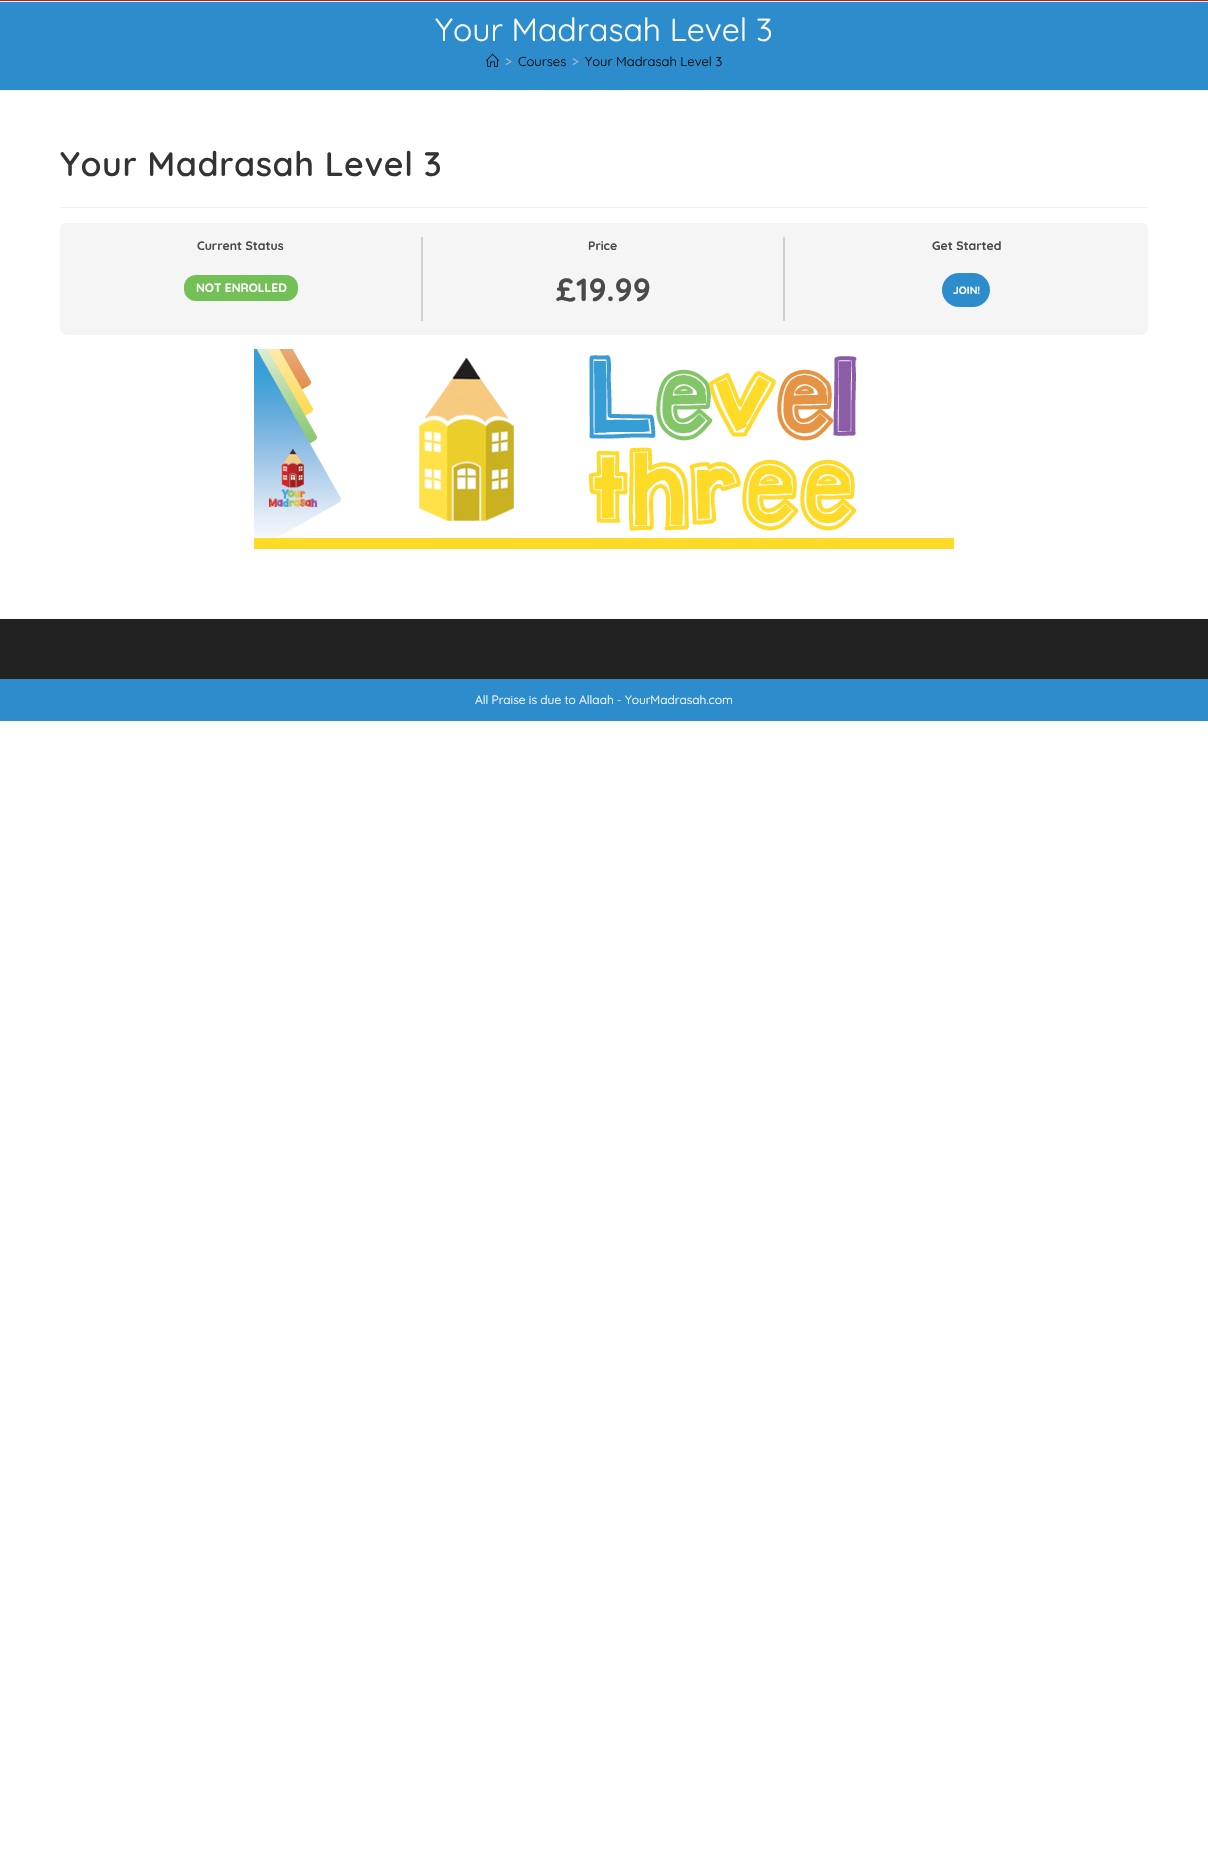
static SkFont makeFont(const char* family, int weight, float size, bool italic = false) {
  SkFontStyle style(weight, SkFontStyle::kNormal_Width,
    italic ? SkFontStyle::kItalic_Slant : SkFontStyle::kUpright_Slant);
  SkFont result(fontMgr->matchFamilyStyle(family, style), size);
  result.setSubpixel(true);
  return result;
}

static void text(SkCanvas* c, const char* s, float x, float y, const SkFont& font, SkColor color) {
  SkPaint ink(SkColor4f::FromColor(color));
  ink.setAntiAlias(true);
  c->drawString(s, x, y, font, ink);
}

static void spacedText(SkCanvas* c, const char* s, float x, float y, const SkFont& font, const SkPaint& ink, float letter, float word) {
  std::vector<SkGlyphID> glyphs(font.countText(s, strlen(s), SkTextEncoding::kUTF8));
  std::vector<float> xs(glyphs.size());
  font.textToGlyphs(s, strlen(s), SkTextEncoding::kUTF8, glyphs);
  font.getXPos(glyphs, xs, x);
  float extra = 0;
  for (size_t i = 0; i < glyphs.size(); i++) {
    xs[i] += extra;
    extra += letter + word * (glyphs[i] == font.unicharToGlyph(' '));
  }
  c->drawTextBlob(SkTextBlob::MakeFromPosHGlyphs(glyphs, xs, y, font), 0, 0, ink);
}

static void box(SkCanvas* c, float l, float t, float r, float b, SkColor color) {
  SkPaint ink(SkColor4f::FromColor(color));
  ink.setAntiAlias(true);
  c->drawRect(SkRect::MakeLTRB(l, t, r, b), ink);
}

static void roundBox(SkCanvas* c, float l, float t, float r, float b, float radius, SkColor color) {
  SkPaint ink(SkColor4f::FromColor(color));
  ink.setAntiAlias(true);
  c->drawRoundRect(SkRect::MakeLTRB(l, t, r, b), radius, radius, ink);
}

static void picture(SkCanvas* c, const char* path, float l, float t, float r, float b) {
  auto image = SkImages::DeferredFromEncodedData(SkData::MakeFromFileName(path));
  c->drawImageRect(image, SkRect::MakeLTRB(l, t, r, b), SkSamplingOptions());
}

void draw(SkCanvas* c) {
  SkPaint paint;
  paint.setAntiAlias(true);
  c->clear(0xffffffff);
  box(c, 0, 0, 1208, 1, 0xffba1f25);
  box(c, 0, 1, 1208, 2, 0xfff1f1f1);
  box(c, 0, 2, 1208, 90, 0xff2d8ccb);
  SkFont face1 = makeFont("Quicksand", 400, 32);
  text(c, "Your Madrasah Level 3", 435, 41, face1, 0xffffffff);
  picture(c, "img_01.png", 486, 53, 499, 67);
  SkFont face2 = makeFont("Quicksand", 400, 13);
  text(c, ">", 505, 66, face2, 0xffc6c6c6);
  text(c, "Courses", 518, 66, face2, 0xff0a0909);
  text(c, ">", 572, 66, face2, 0xffc6c6c6);
  text(c, "Your Madrasah Level 3", 585, 66, face2, 0xff0a0909);
  box(c, 60, 207, 1148, 208, 0xfff1f1f1);
  SkFont face3 = makeFont("Quicksand", 600, 34);
  paint.setColor(0xff333333);
  spacedText(c, "Your Madrasah Level 3", 60, 176, face3, paint, 0.6f, 0);
  roundBox(c, 60, 223, 1148, 335, 6, 0xfff5f5f5);
  box(c, 421, 237, 423, 321, 0xffd0d0d0);
  SkFont face4 = makeFont("Quicksand", 700, 12.25f);
  text(c, "Current Status", 197, 250, face4, 0xff4a4a4a);
  roundBox(c, 184, 275, 298, 301, 12, 0xff72c056);
  SkFont face5 = makeFont("Quicksand", 700, 12);
  text(c, "NOT ENROLLED", 196, 292, face5, 0xffffffff);
  box(c, 783, 237, 785, 321, 0xffd0d0d0);
  text(c, "Price", 588, 250, face4, 0xff4a4a4a);
  SkFont face6 = makeFont("Quicksand", 700, 32);
  text(c, "£19.99", 556, 301, face6, 0xff4a4a4a);
  text(c, "Get Started", 932, 250, face4, 0xff4a4a4a);
  roundBox(c, 942, 273, 990, 307, 17, 0xff2d8ccb);
  SkFont face7 = makeFont("Quicksand", 700, 10.5f);
  text(c, "JOIN!", 953, 294, face7, 0xffffffff);
  picture(c, "img_02.png", 254, 349, 954, 549);
  box(c, 0, 619, 1208, 679, 0xff222222);
  box(c, 0, 679, 1208, 721, 0xff2d8ccb);
  SkFont face8 = makeFont("Quicksand", 400, 12);
  text(c, "All Praise is due to Allaah - YourMadrasah.com", 475, 704, face8, 0xffffffff);
}
